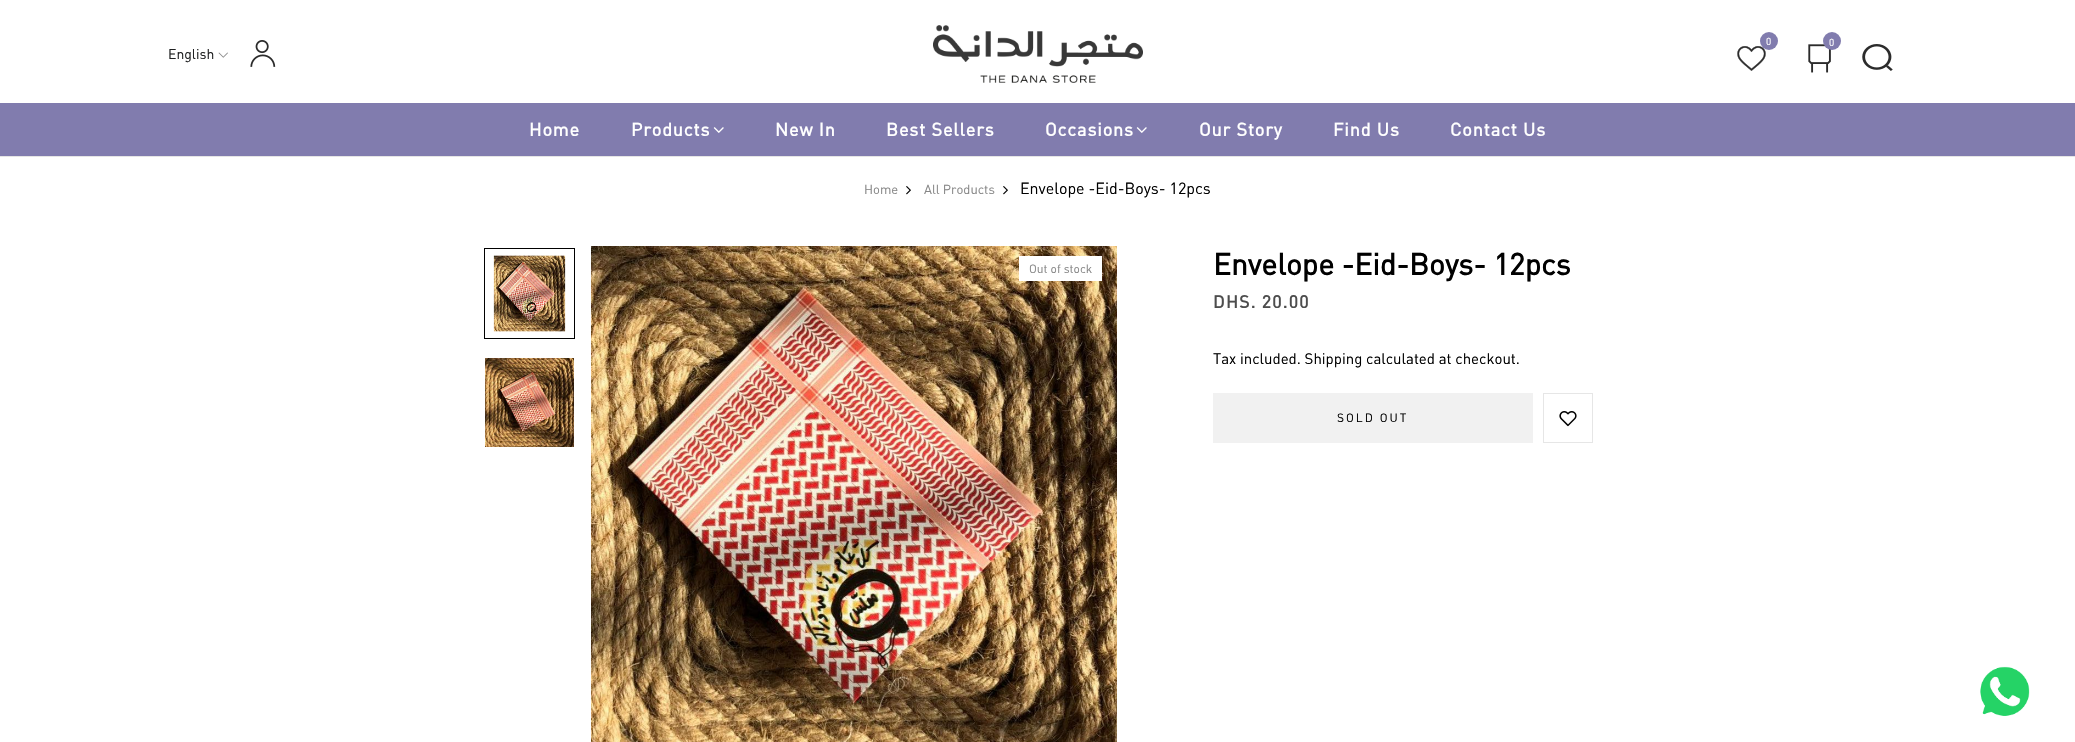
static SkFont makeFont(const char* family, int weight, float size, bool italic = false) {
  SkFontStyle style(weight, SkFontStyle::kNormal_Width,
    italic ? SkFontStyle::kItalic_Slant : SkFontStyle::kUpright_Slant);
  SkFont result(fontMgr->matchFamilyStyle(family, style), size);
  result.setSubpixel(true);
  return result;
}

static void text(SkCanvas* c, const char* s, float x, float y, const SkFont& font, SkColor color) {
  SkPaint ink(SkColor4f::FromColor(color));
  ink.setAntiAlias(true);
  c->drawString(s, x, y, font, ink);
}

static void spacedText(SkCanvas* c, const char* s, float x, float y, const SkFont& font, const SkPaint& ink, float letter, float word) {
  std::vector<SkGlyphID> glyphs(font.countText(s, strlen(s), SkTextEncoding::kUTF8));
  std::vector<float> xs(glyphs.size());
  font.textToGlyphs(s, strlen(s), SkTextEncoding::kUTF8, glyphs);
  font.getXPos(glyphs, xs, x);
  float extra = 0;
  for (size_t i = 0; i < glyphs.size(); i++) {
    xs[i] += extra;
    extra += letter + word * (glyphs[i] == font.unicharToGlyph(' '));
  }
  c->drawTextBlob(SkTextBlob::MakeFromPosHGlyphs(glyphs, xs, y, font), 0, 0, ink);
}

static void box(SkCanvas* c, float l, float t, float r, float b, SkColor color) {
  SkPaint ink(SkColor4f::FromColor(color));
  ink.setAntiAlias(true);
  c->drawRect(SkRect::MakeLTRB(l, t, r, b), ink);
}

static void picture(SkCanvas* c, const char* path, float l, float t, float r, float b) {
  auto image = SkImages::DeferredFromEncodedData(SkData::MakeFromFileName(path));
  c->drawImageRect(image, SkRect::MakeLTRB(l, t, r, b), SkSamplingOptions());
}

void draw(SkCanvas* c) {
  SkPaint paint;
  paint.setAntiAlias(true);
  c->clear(0xffffffff);
  box(c, 0, 156, 2075, 157, 0xffe5e5e5);
  picture(c, "img_01.png", 933, 25, 1143, 83);
  picture(c, "img_02.png", 1737, 46, 1766, 71);
  paint.setColor(0xff817cae);
  c->drawCircle(1769, 41, 9, paint);
  SkFont face1 = makeFont("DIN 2", 400, 10);
  text(c, "0", 1766, 45, face1, 0xffffffff);
  picture(c, "img_03.png", 1808, 44, 1831, 73);
  c->drawCircle(1832, 41, 9, paint);
  text(c, "0", 1829, 46, face1, 0xffffffff);
  picture(c, "img_04.png", 1862, 44, 1893, 71);
  SkFont face2 = makeFont("DIN 2", 400, 14);
  text(c, "English", 168, 59, face2, 0xff1f2021);
  picture(c, "img_05.png", 218, 52, 228, 58);
  picture(c, "img_06.png", 250, 40, 276, 67);
  box(c, 0, 103, 2075, 156, 0xff817cae);
  SkFont face3 = makeFont("DIN", 700, 18);
  paint.setColor(0xffffffff);
  spacedText(c, "Home", 529, 136, face3, paint, 0.9f, 0);
  spacedText(c, "Products", 631, 136, face3, paint, 0.9f, 0);
  picture(c, "img_07.png", 713, 127, 724, 133);
  spacedText(c, "New In", 775, 136, face3, paint, 0.9f, 0);
  spacedText(c, "Best Sellers", 886, 136, face3, paint, 0.9f, 0);
  spacedText(c, "Occasions", 1045, 136, face3, paint, 0.9f, 0);
  picture(c, "img_07.png", 1136, 127, 1147, 133);
  spacedText(c, "Our Story", 1199, 136, face3, paint, 0.9f, 0);
  spacedText(c, "Find Us", 1333, 136, face3, paint, 0.9f, 0);
  spacedText(c, "Contact Us", 1450, 136, face3, paint, 0.9f, 0);
  SkFont face4 = makeFont("DIN", 400, 13);
  text(c, "Home", 864, 194, face4, 0xff868686);
  picture(c, "img_08.png", 906, 186, 911, 195);
  text(c, "All Products", 924, 194, face4, 0xff868686);
  picture(c, "img_08.png", 1003, 186, 1008, 195);
  SkFont face5 = makeFont("DIN", 400, 16);
  text(c, "Envelope -Eid-Boys- 12pcs", 1020, 194, face5, 0xff000000);
  paint.setStyle(SkPaint::kStroke_Style);
  paint.setStrokeWidth(1);
  paint.setColor(0xff000000);
  c->drawRect(SkRect::MakeLTRB(484.5f, 248.5f, 574.5f, 338.5f), paint);
  picture(c, "img_09.png", 493, 255, 566, 332);
  picture(c, "img_10.png", 485, 358, 574, 447);
  picture(c, "img_11.png", 591, 246, 1117, 742);
  box(c, 1019, 256, 1102, 281, 0xffffffff);
  SkFont face6 = makeFont("DIN 2", 400, 12);
  text(c, "Out of stock", 1029, 273, face6, 0xff868686);
  SkFont face7 = makeFont("DIN", 700, 30);
  text(c, "Envelope -Eid-Boys- 12pcs", 1213, 275, face7, 0xff000000);
  SkFont face8 = makeFont("DIN", 500, 18);
  paint.setStyle(SkPaint::kFill_Style);
  paint.setColor(0xff4d4d4d);
  spacedText(c, "DHS. 20.00", 1213, 308, face8, paint, 0.9f, 0);
  SkFont face9 = makeFont("DIN 2", 400, 15);
  text(c, "Tax included. Shipping calculated at checkout.", 1213, 364, face9, 0xff000000);
  box(c, 1213, 393, 1533, 443, 0xfff1f1f1);
  paint.setColor(0xff000000);
  spacedText(c, "SOLD OUT", 1337, 422, face6, paint, 2, 0);
  paint.setStyle(SkPaint::kStroke_Style);
  paint.setColor(0xffe6e6e6);
  c->drawRect(SkRect::MakeLTRB(1543.5f, 393.5f, 1592.5f, 442.5f), paint);
  picture(c, "img_12.png", 1559, 411, 1577, 427);
  picture(c, "img_13.png", 1980, 666, 2030, 716);
}
